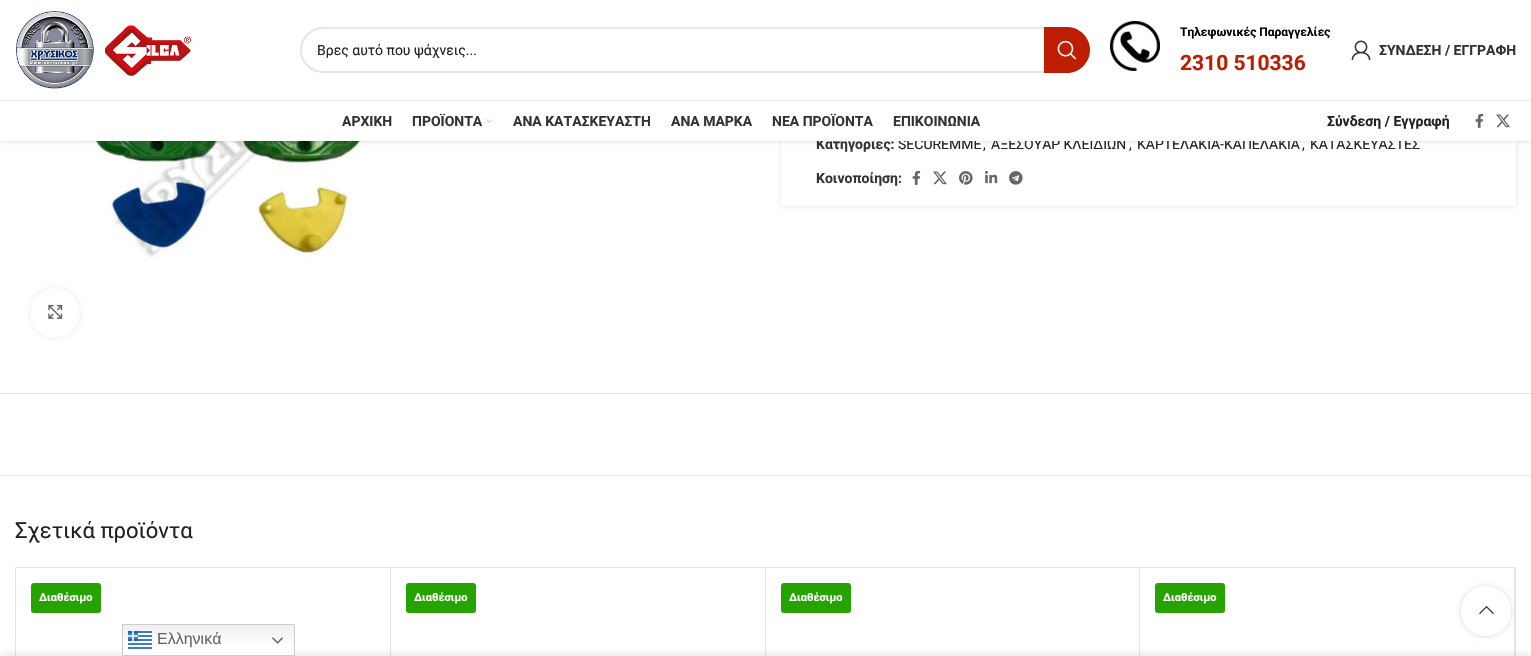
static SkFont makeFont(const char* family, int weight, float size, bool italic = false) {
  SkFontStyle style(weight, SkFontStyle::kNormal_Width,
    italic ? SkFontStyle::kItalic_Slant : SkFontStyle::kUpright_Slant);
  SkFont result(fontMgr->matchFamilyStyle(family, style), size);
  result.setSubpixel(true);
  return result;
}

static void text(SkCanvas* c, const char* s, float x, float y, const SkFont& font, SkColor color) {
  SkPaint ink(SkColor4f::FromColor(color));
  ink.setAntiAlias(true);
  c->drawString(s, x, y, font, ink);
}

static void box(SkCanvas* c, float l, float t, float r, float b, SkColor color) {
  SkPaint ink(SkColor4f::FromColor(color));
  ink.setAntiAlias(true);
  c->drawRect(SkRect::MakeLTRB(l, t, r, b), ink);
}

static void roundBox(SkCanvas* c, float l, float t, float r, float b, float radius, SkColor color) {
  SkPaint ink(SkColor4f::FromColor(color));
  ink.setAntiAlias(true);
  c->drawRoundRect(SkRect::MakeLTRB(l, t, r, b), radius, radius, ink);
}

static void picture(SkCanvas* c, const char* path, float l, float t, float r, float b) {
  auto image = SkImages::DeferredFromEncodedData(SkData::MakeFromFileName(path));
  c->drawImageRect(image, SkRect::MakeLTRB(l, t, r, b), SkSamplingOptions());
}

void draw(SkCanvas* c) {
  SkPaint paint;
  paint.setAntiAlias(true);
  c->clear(0xffffffff);
  picture(c, "img_08.png", 87, 141, 367, 258);
  paint.setColor(0x1a000000);
  paint.setMaskFilter(SkMaskFilter::MakeBlur(kNormal_SkBlurStyle, 1.5f));
  c->drawRect(SkRect::MakeLTRB(0, 1, 1531, 142), paint);
  paint.setMaskFilter(nullptr);
  c->save();
  c->clipPath(SkPathBuilder(SkPathFillType::kEvenOdd).moveTo(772, 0).lineTo(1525, 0).lineTo(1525, 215).lineTo(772, 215).close().moveTo(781, -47).lineTo(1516, -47).lineTo(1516, 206).lineTo(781, 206).close().detach(), true);
  paint.setMaskFilter(SkMaskFilter::MakeBlur(kNormal_SkBlurStyle, 2.5f));
  c->drawRect(SkRect::MakeLTRB(781, -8, 1516, 206), paint);
  paint.setMaskFilter(nullptr);
  c->restore();
  box(c, 0, 0, 1531, 100, 0xffffffff);
  box(c, 0, 100, 1531, 101, 0xffe6e6e6);
  picture(c, "img_01.png", 16, 11, 191, 89);
  paint.setStyle(SkPaint::kStroke_Style);
  paint.setStrokeWidth(2);
  paint.setColor(0xffe6e6e6);
  c->drawRoundRect(SkRect::MakeLTRB(301, 28, 1089, 72), 22, 22, paint);
  SkFont face1 = makeFont("Roboto", 400, 14);
  text(c, "Βρες αυτό που ψάχνεις...", 317, 55, face1, 0xff212121);
  paint.setStyle(SkPaint::kFill_Style);
  paint.setColor(0xffbd1e02);
  c->drawPath(SkPathBuilder().moveTo(1044, 27).lineTo(1067, 27).cubicTo(1079.5f, 27, 1090, 37.5f, 1090, 50).cubicTo(1090, 62.5f, 1079.5f, 73, 1067, 73).lineTo(1044, 73).close().detach(), paint);
  picture(c, "img_02.png", 1057, 40, 1077, 60);
  picture(c, "img_03.png", 1110, 21, 1160, 71);
  SkFont face2 = makeFont("Roboto", 700, 12);
  text(c, "Τηλεφωνικές Παραγγελίες", 1180, 36, face2, 0xff000000);
  SkFont face3 = makeFont("Roboto", 700, 21);
  text(c, "2310 510336", 1180, 70, face3, 0xffbd1e02);
  picture(c, "img_04.png", 1351, 40, 1371, 60);
  SkFont face4 = makeFont("Roboto", 700, 14);
  text(c, "ΣΥΝΔΕΣΗ / ΕΓΓΡΑΦΗ", 1379, 55, face4, 0xff333333);
  text(c, "Κατηγορίες:", 816, 149, face4, 0xff333333);
  text(c, "SECUREMME", 898, 149, face1, 0xff212121);
  text(c, "ΑΞΕΣΟΥΑΡ ΚΛΕΙΔΙΩΝ", 991, 149, face1, 0xff212121);
  text(c, "ΚΑΡΤΕΛΑΚΙΑ-ΚΑΠΕΛΑΚΙΑ", 1137, 149, face1, 0xff212121);
  text(c, "ΚΑΤΑΣΚΕΥΑΣΤΕΣ", 1310, 149, face1, 0xff212121);
  box(c, 0, 101, 1531, 141, 0xffffffff);
  text(c, "ΑΡΧΙΚΗ", 342, 126, face4, 0xff333333);
  text(c, "ΠΡΟΪΟΝΤΑ", 412, 126, face4, 0xff333333);
  picture(c, "img_05.png", 486, 119, 493, 123);
  text(c, "ΑΝΑ ΚΑΤΑΣΚΕΥΑΣΤΗ", 513, 126, face4, 0xff333333);
  text(c, "ΑΝΑ ΜΑΡΚΑ", 671, 126, face4, 0xff333333);
  text(c, "ΝΕΑ ΠΡΟΪΟΝΤΑ", 772, 126, face4, 0xff333333);
  text(c, "ΕΠΙΚΟΙΝΩΝΙΑ", 893, 126, face4, 0xff333333);
  text(c, "Σύνδεση / Εγγραφή", 1327, 126, face4, 0xff212121);
  picture(c, "img_06.png", 1475, 113, 1484, 128);
  picture(c, "img_07.png", 1496, 114, 1510, 128);
  paint.setColor(0x14000000);
  paint.setMaskFilter(SkMaskFilter::MakeBlur(kNormal_SkBlurStyle, 2.5f));
  c->drawRoundRect(SkRect::MakeLTRB(30, 288, 80, 338), 25, 25, paint);
  paint.setMaskFilter(nullptr);
  paint.setColor(0xffffffff);
  c->drawCircle(55, 313, 25, paint);
  picture(c, "img_09.png", 48, 304, 63, 319);
  text(c, ",", 983, 149, face1, 0xff212121);
  text(c, ",", 1129, 149, face1, 0xff212121);
  text(c, ",", 1302, 149, face1, 0xff212121);
  text(c, "Κοινοποίηση:", 816, 183, face4, 0xff333333);
  picture(c, "img_06.png", 912, 170, 921, 185);
  picture(c, "img_07.png", 933, 171, 947, 185);
  picture(c, "img_10.png", 959, 171, 973, 185);
  picture(c, "img_11.png", 985, 170, 998, 184);
  picture(c, "img_12.png", 1009, 171, 1023, 185);
  box(c, 0, 393, 1531, 394, 0xffe4e4e4);
  box(c, 0, 475, 1531, 476, 0xffe4e4e4);
  SkFont face5 = makeFont("Roboto", 400, 22);
  text(c, "Σχετικά προϊόντα", 15, 538, face5, 0xff212121);
  paint.setStyle(SkPaint::kStroke_Style);
  paint.setStrokeWidth(1);
  paint.setColor(0xffe4e4e4);
  c->drawRect(SkRect::MakeLTRB(15.5f, 567.5f, 1515.5f, 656.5f), paint);
  box(c, 390, 568, 391, 656, 0xffe4e4e4);
  roundBox(c, 31, 583, 101, 613, 3, 0xff26a300);
  SkFont face6 = makeFont("Roboto", 700, 11);
  text(c, "Διαθέσιμο", 39, 601, face6, 0xffffffff);
  box(c, 765, 568, 766, 656, 0xffe4e4e4);
  roundBox(c, 406, 583, 476, 613, 3, 0xff26a300);
  text(c, "Διαθέσιμο", 414, 601, face6, 0xffffffff);
  box(c, 1139, 568, 1140, 656, 0xffe4e4e4);
  roundBox(c, 781, 583, 851, 613, 3, 0xff26a300);
  text(c, "Διαθέσιμο", 789, 601, face6, 0xffffffff);
  box(c, 1514, 568, 1515, 656, 0xffe4e4e4);
  roundBox(c, 1155, 583, 1225, 613, 3, 0xff26a300);
  text(c, "Διαθέσιμο", 1163, 601, face6, 0xffffffff);
  paint.setStyle(SkPaint::kFill_Style);
  paint.setColor(0x24000000);
  paint.setMaskFilter(SkMaskFilter::MakeBlur(kNormal_SkBlurStyle, 4.5f));
  c->drawRect(SkRect::MakeLTRB(0, 656, 1531, 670), paint);
  paint.setMaskFilter(nullptr);
  {
    const SkColor colors[] = {0xffefefef, 0xffffffff};
    const float stops[] = {0, 0.7f};
    const SkPoint ends[] = {{209, 624}, {209, 656}};
    paint.setShader(SkGradientShader::MakeLinear(ends, colors, stops, 2, SkTileMode::kClamp));
    paint.setAlpha(255);
  }
  c->drawRect(SkRect::MakeLTRB(123, 625, 294, 655), paint);
  paint.setStyle(SkPaint::kStroke_Style);
  paint.setShader(nullptr);
  paint.setColor(0xffcccccc);
  c->drawRect(SkRect::MakeLTRB(122.5f, 624.5f, 294.5f, 655.5f), paint);
  picture(c, "img_13.png", 128, 631, 152, 649);
  SkFont face7 = makeFont("Liberation Sans", 400, 16);
  text(c, "Ελληνικά", 157, 644, face7, 0xff666666);
  picture(c, "img_14.png", 272, 637, 283, 644);
  c->save();
  c->clipPath(SkPathBuilder(SkPathFillType::kEvenOdd).moveTo(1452, 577).lineTo(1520, 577).lineTo(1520, 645).lineTo(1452, 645).close().moveTo(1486, 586).cubicTo(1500, 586, 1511, 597, 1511, 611).cubicTo(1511, 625, 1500, 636, 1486, 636).cubicTo(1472, 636, 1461, 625, 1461, 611).cubicTo(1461, 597, 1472, 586, 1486, 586).close().detach(), true);
  paint.setStyle(SkPaint::kFill_Style);
  paint.setColor(0x2b000000);
  paint.setMaskFilter(SkMaskFilter::MakeBlur(kNormal_SkBlurStyle, 2.5f));
  c->drawRoundRect(SkRect::MakeLTRB(1461, 586, 1511, 636), 25, 25, paint);
  paint.setMaskFilter(nullptr);
  c->restore();
  paint.setColor(0xe6ffffff);
  c->drawCircle(1486, 611, 25, paint);
  picture(c, "img_15.png", 1479, 605, 1494, 614);
}
